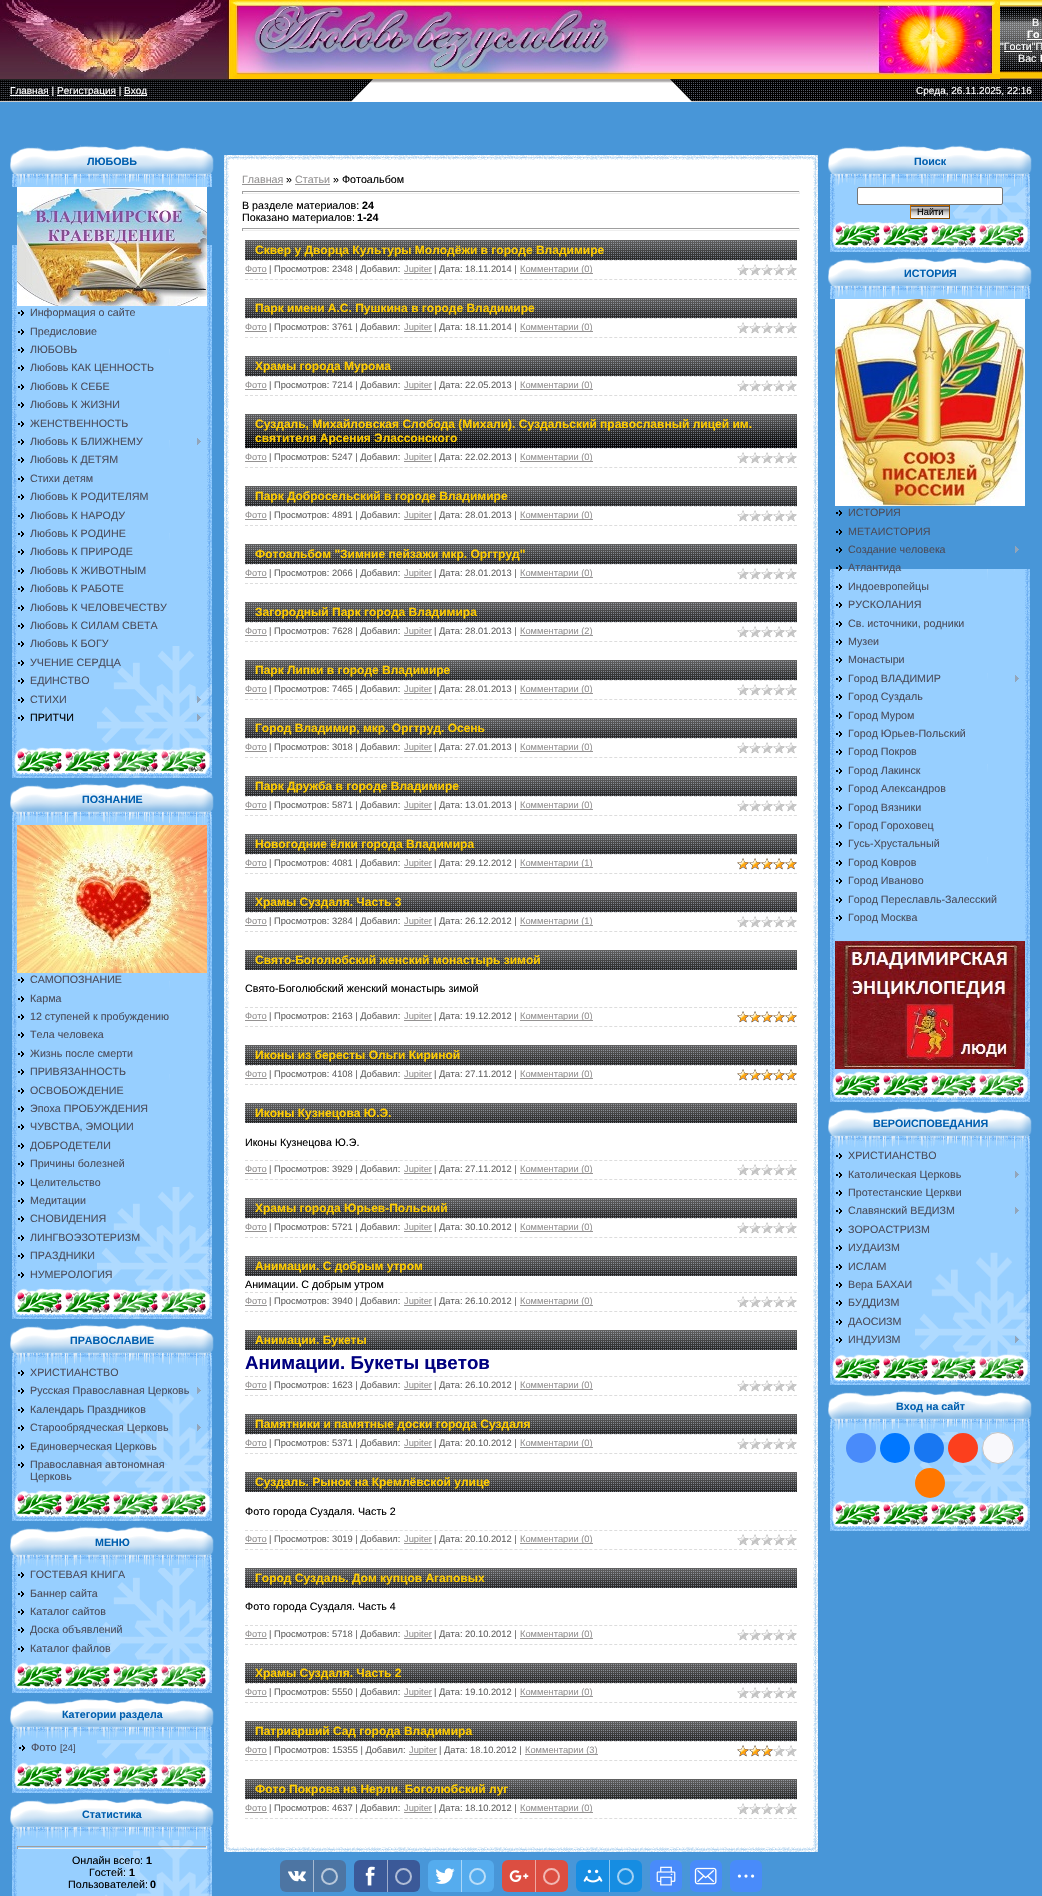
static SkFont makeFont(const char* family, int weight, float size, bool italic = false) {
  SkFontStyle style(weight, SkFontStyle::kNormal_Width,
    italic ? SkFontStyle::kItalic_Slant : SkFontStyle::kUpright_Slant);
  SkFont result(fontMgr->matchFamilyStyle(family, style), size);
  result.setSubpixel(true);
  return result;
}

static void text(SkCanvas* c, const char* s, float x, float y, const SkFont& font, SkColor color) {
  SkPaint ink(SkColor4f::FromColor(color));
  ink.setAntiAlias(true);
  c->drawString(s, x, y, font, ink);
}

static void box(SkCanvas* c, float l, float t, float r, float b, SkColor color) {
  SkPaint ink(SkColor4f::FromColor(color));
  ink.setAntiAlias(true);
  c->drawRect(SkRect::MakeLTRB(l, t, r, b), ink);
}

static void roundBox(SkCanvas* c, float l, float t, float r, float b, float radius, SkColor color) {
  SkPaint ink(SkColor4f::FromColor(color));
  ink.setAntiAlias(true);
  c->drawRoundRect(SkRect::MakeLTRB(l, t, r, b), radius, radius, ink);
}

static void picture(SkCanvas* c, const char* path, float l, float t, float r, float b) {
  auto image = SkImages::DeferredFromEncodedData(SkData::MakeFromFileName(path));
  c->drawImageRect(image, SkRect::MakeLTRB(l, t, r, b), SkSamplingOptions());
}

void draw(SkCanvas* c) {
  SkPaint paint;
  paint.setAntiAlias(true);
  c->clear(0xff4896d8);
  picture(c, "img_01.png", 1000, 0, 1042, 79);
  picture(c, "img_02.png", 0, 0, 1000, 79);
  SkFont face1 = makeFont("Liberation Sans", 400, 10.7f);
  text(c, "В", 1032, 26, face1, 0xffffffff);
  SkFont face2 = makeFont("Liberation Sans", 700, 10.7f);
  text(c, "Го", 1027, 38, face2, 0xffffffff);
  box(c, 1027, 39, 1042, 40, 0xffffffff);
  text(c, "\"Гости\"П", 1000, 50, face1, 0xffffffff);
  box(c, 1004, 51, 1032, 52, 0xffffffff);
  text(c, "Вас", 1018, 62, face1, 0xffffffff);
  text(c, "Г", 1040, 62, face2, 0xffffffff);
  picture(c, "img_03.png", 373, 79, 670, 102);
  picture(c, "img_04.png", 0, 79, 348, 102);
  box(c, 10, 95, 49, 96, 0xffffffff);
  SkFont face3 = makeFont("Liberation Sans", 400, 10);
  text(c, "Главная |", 10, 94, face3, 0xffffffff);
  box(c, 57, 95, 116, 96, 0xffffffff);
  text(c, "Регистрация |", 57, 94, face3, 0xffffffff);
  box(c, 124, 95, 147, 96, 0xffffffff);
  text(c, "Вход", 124, 94, face3, 0xffffffff);
  picture(c, "img_05.png", 348, 79, 373, 102);
  picture(c, "img_06.png", 670, 79, 695, 102);
  picture(c, "img_07.png", 695, 79, 1042, 102);
  text(c, "Среда, 26.11.2025, 22:16", 916, 94, face3, 0xffffffff);
  picture(c, "img_08.png", 10, 145, 214, 187);
  text(c, "ЛЮБОВЬ", 87, 165, face2, 0xff005faf);
  picture(c, "img_09.png", 12, 245, 212, 745);
  picture(c, "img_10.png", 17, 187, 207, 306);
  picture(c, "img_11.png", 18, 310, 24, 316);
  text(c, "Информация о сайте", 30, 316, face1, 0xff4b4d5c);
  picture(c, "img_11.png", 18, 329, 24, 335);
  text(c, "Предисловие", 30, 335, face1, 0xff4b4d5c);
  picture(c, "img_11.png", 18, 347, 24, 353);
  text(c, "ЛЮБОВЬ", 30, 353, face1, 0xff4b4d5c);
  picture(c, "img_11.png", 18, 365, 24, 371);
  text(c, "Любовь КАК ЦЕННОСТЬ", 30, 371, face1, 0xff4b4d5c);
  picture(c, "img_11.png", 18, 384, 24, 390);
  text(c, "Любовь К СЕБЕ", 30, 390, face1, 0xff4b4d5c);
  picture(c, "img_11.png", 18, 402, 24, 408);
  text(c, "Любовь К ЖИЗНИ", 30, 408, face1, 0xff4b4d5c);
  picture(c, "img_11.png", 18, 421, 24, 427);
  text(c, "ЖЕНСТВЕННОСТЬ", 30, 427, face1, 0xff4b4d5c);
  picture(c, "img_11.png", 18, 439, 24, 445);
  text(c, "Любовь К БЛИЖНЕМУ", 30, 445, face1, 0xff4b4d5c);
  picture(c, "img_12.png", 197, 438, 201, 445);
  picture(c, "img_11.png", 18, 457, 24, 463);
  text(c, "Любовь К ДЕТЯМ", 30, 463, face1, 0xff4b4d5c);
  picture(c, "img_11.png", 18, 476, 24, 482);
  text(c, "Стихи детям", 30, 482, face1, 0xff4b4d5c);
  picture(c, "img_11.png", 18, 494, 24, 500);
  text(c, "Любовь К РОДИТЕЛЯМ", 30, 500, face1, 0xff4b4d5c);
  picture(c, "img_11.png", 18, 513, 24, 519);
  text(c, "Любовь К НАРОДУ", 30, 519, face1, 0xff4b4d5c);
  picture(c, "img_11.png", 18, 531, 24, 537);
  text(c, "Любовь К РОДИНЕ", 30, 537, face1, 0xff4b4d5c);
  picture(c, "img_11.png", 18, 549, 24, 555);
  text(c, "Любовь К ПРИРОДЕ", 30, 555, face1, 0xff4b4d5c);
  picture(c, "img_11.png", 18, 568, 24, 574);
  text(c, "Любовь К ЖИВОТНЫМ", 30, 574, face1, 0xff4b4d5c);
  picture(c, "img_11.png", 18, 586, 24, 592);
  text(c, "Любовь К РАБОТЕ", 30, 592, face1, 0xff4b4d5c);
  picture(c, "img_11.png", 18, 605, 24, 611);
  text(c, "Любовь К ЧЕЛОВЕЧЕСТВУ", 30, 611, face1, 0xff4b4d5c);
  picture(c, "img_11.png", 18, 623, 24, 629);
  text(c, "Любовь К СИЛАМ СВЕТА", 30, 629, face1, 0xff4b4d5c);
  picture(c, "img_11.png", 18, 641, 24, 647);
  text(c, "Любовь К БОГУ", 30, 647, face1, 0xff4b4d5c);
  picture(c, "img_11.png", 18, 660, 24, 666);
  text(c, "УЧЕНИЕ СЕРДЦА", 30, 666, face1, 0xff4b4d5c);
  picture(c, "img_11.png", 18, 678, 24, 684);
  text(c, "ЕДИНСТВО", 30, 684, face1, 0xff4b4d5c);
  picture(c, "img_11.png", 18, 697, 24, 703);
  text(c, "СТИХИ", 30, 703, face1, 0xff4b4d5c);
  picture(c, "img_13.png", 197, 696, 201, 703);
  picture(c, "img_11.png", 18, 715, 24, 721);
  text(c, "ПРИТЧИ", 30, 721, face1, 0xff000000);
  picture(c, "img_14.png", 197, 714, 201, 721);
  picture(c, "img_15.png", 12, 745, 212, 778);
  picture(c, "img_08.png", 10, 783, 214, 825);
  text(c, "ПОЗНАНИЕ", 82, 803, face2, 0xff005faf);
  picture(c, "img_16.png", 12, 825, 212, 1286);
  picture(c, "img_17.png", 17, 825, 207, 973);
  picture(c, "img_11.png", 18, 977, 24, 983);
  text(c, "САМОПОЗНАНИЕ", 30, 983, face1, 0xff4b4d5c);
  picture(c, "img_11.png", 18, 996, 24, 1002);
  text(c, "Карма", 30, 1002, face1, 0xff4b4d5c);
  picture(c, "img_11.png", 18, 1014, 24, 1020);
  text(c, "12 ступеней к пробуждению", 30, 1020, face1, 0xff4b4d5c);
  picture(c, "img_11.png", 18, 1032, 24, 1038);
  text(c, "Тела человека", 30, 1038, face1, 0xff4b4d5c);
  picture(c, "img_11.png", 18, 1051, 24, 1057);
  text(c, "Жизнь после смерти", 30, 1057, face1, 0xff4b4d5c);
  picture(c, "img_11.png", 18, 1069, 24, 1075);
  text(c, "ПРИВЯЗАННОСТЬ", 30, 1075, face1, 0xff4b4d5c);
  picture(c, "img_11.png", 18, 1088, 24, 1094);
  text(c, "ОСВОБОЖДЕНИЕ", 30, 1094, face1, 0xff4b4d5c);
  picture(c, "img_11.png", 18, 1106, 24, 1112);
  text(c, "Эпоха ПРОБУЖДЕНИЯ", 30, 1112, face1, 0xff4b4d5c);
  picture(c, "img_11.png", 18, 1124, 24, 1130);
  text(c, "ЧУВСТВА, ЭМОЦИИ", 30, 1130, face1, 0xff4b4d5c);
  picture(c, "img_11.png", 18, 1143, 24, 1149);
  text(c, "ДОБРОДЕТЕЛИ", 30, 1149, face1, 0xff4b4d5c);
  picture(c, "img_11.png", 18, 1161, 24, 1167);
  text(c, "Причины болезней", 30, 1167, face1, 0xff4b4d5c);
  picture(c, "img_11.png", 18, 1180, 24, 1186);
  text(c, "Целительство", 30, 1186, face1, 0xff4b4d5c);
  picture(c, "img_11.png", 18, 1198, 24, 1204);
  text(c, "Медитации", 30, 1204, face1, 0xff4b4d5c);
  picture(c, "img_11.png", 18, 1216, 24, 1222);
  text(c, "СНОВИДЕНИЯ", 30, 1222, face1, 0xff4b4d5c);
  picture(c, "img_11.png", 18, 1235, 24, 1241);
  text(c, "ЛИНГВОЭЗОТЕРИЗМ", 30, 1241, face1, 0xff4b4d5c);
  picture(c, "img_11.png", 18, 1253, 24, 1259);
  text(c, "ПРАЗДНИКИ", 30, 1259, face1, 0xff4b4d5c);
  picture(c, "img_11.png", 18, 1272, 24, 1278);
  text(c, "НУМЕРОЛОГИЯ", 30, 1278, face1, 0xff4b4d5c);
  picture(c, "img_15.png", 12, 1286, 212, 1319);
  picture(c, "img_08.png", 10, 1324, 214, 1366);
  text(c, "ПРАВОСЛАВИЕ", 70, 1344, face2, 0xff005faf);
  picture(c, "img_18.png", 12, 1366, 212, 1488);
  picture(c, "img_11.png", 18, 1370, 24, 1376);
  text(c, "ХРИСТИАНСТВО", 30, 1376, face1, 0xff4b4d5c);
  picture(c, "img_11.png", 18, 1388, 24, 1394);
  text(c, "Русская Православная Церковь", 30, 1394, face1, 0xff4b4d5c);
  picture(c, "img_12.png", 197, 1387, 201, 1394);
  picture(c, "img_11.png", 18, 1407, 24, 1413);
  text(c, "Календарь Праздников", 30, 1413, face1, 0xff4b4d5c);
  picture(c, "img_11.png", 18, 1425, 24, 1431);
  text(c, "Старообрядческая Церковь", 30, 1431, face1, 0xff4b4d5c);
  picture(c, "img_12.png", 197, 1424, 201, 1431);
  picture(c, "img_11.png", 18, 1444, 24, 1450);
  text(c, "Единоверческая Церковь", 30, 1450, face1, 0xff4b4d5c);
  picture(c, "img_11.png", 18, 1462, 24, 1468);
  text(c, "Православная автономная", 30, 1468, face1, 0xff4b4d5c);
  text(c, "Церковь", 30, 1480, face1, 0xff4b4d5c);
  picture(c, "img_15.png", 12, 1488, 212, 1521);
  picture(c, "img_08.png", 10, 1526, 214, 1568);
  text(c, "МЕНЮ", 95, 1546, face2, 0xff005faf);
  picture(c, "img_19.png", 12, 1568, 212, 1660);
  picture(c, "img_11.png", 18, 1572, 24, 1578);
  text(c, "ГОСТЕВАЯ КНИГА", 30, 1578, face1, 0xff4b4d5c);
  picture(c, "img_11.png", 18, 1591, 24, 1597);
  text(c, "Баннер сайта", 30, 1597, face1, 0xff4b4d5c);
  picture(c, "img_11.png", 18, 1609, 24, 1615);
  text(c, "Каталог сайтов", 30, 1615, face1, 0xff4b4d5c);
  picture(c, "img_11.png", 18, 1627, 24, 1633);
  text(c, "Доска объявлений", 30, 1633, face1, 0xff4b4d5c);
  picture(c, "img_11.png", 18, 1646, 24, 1652);
  text(c, "Каталог файлов", 30, 1652, face1, 0xff4b4d5c);
  picture(c, "img_15.png", 12, 1660, 212, 1693);
  picture(c, "img_08.png", 10, 1698, 214, 1740);
  text(c, "Категории раздела", 62, 1718, face2, 0xff005faf);
  picture(c, "img_20.png", 12, 1740, 212, 1760);
  picture(c, "img_11.png", 19, 1745, 25, 1751);
  SkFont face4 = makeFont("Liberation Sans", 400, 11);
  text(c, "Фото", 31, 1751, face4, 0xff4b4d5c);
  SkFont face5 = makeFont("Liberation Sans", 400, 9.3f);
  text(c, "[24]", 60, 1751, face5, 0xff4b4d5c);
  picture(c, "img_15.png", 12, 1760, 212, 1793);
  picture(c, "img_08.png", 10, 1798, 214, 1840);
  text(c, "Статистика", 82, 1818, face2, 0xff005faf);
  picture(c, "img_21.png", 12, 1840, 212, 1896);
  box(c, 17, 1846, 207, 1847, 0xff9f9f9f);
  box(c, 206, 1846, 207, 1849, 0xffeeeeee);
  box(c, 17, 1848, 207, 1849, 0xffeeeeee);
  box(c, 17, 1846, 18, 1849, 0xff9f9f9f);
  text(c, "Онлайн всего:", 72, 1864, face1, 0xff000000);
  text(c, "1", 146, 1864, face2, 0xff000000);
  text(c, "Гостей:", 89, 1876, face1, 0xff000000);
  text(c, "1", 129, 1876, face2, 0xff000000);
  text(c, "Пользователей:", 68, 1888, face1, 0xff000000);
  text(c, "0", 150, 1888, face2, 0xff000000);
  picture(c, "img_22.png", 224, 155, 232, 163);
  picture(c, "img_23.png", 232, 155, 810, 163);
  picture(c, "img_24.png", 810, 155, 818, 163);
  picture(c, "img_25.png", 224, 163, 232, 1844);
  box(c, 232, 163, 810, 1844, 0xffffffff);
  text(c, "Главная", 242, 183, face1, 0xff959393);
  box(c, 242, 184, 283, 185, 0xff959393);
  text(c, "»", 286, 183, face1, 0xff000000);
  text(c, "Статьи", 295, 183, face1, 0xff959393);
  box(c, 295, 184, 330, 185, 0xff959393);
  text(c, "» Фотоальбом", 333, 183, face1, 0xff000000);
  box(c, 242, 191, 800, 192, 0xff9f9f9f);
  box(c, 799, 191, 800, 194, 0xffeeeeee);
  box(c, 242, 193, 800, 194, 0xffeeeeee);
  box(c, 242, 191, 243, 194, 0xff9f9f9f);
  text(c, "В разделе материалов:", 242, 209, face1, 0xff000000);
  text(c, "24", 362, 209, face2, 0xff000000);
  text(c, "Показано материалов:", 242, 221, face1, 0xff000000);
  text(c, "1-24", 357, 221, face2, 0xff000000);
  box(c, 242, 228, 800, 229, 0xff9f9f9f);
  box(c, 799, 228, 800, 231, 0xffeeeeee);
  box(c, 242, 230, 800, 231, 0xffeeeeee);
  box(c, 242, 228, 243, 231, 0xff9f9f9f);
  picture(c, "img_26.png", 245, 240, 797, 260);
  SkFont face6 = makeFont("Liberation Sans", 700, 12);
  text(c, "Сквер у Дворца Культуры Молодёжи в городе Владимире", 255, 254, face6, 0xffffcc00);
  paint.setStyle(SkPaint::kStroke_Style);
  paint.setStrokeWidth(1);
  paint.setColor(0xffdddddd);
  paint.setPathEffect(SkDashPathEffect::Make({{3, 1.99f}}, 0));
  c->drawPath(SkPathBuilder().moveTo(245, 260.5f).lineTo(797, 260.5f).detach(), paint);
  paint.setPathEffect(nullptr);
  paint.setPathEffect(SkDashPathEffect::Make({{3, 1.99f}}, 0));
  c->drawPath(SkPathBuilder().moveTo(245, 279.5f).lineTo(797, 279.5f).detach(), paint);
  paint.setPathEffect(nullptr);
  text(c, "Фото", 245, 272, face5, 0xff959393);
  box(c, 245, 273, 267, 274, 0xff959393);
  text(c, "| Просмотров: 2348 | Добавил:", 269, 272, face5, 0xff636363);
  box(c, 404, 273, 432, 274, 0xff959393);
  text(c, "Jupiter", 404, 272, face5, 0xff959393);
  text(c, "| Дата: 18.11.2014 |", 434, 272, face5, 0xff636363);
  box(c, 520, 273, 593, 274, 0xff959393);
  text(c, "Комментарии (0)", 520, 272, face5, 0xff959393);
  picture(c, "img_27.png", 737, 264, 797, 276);
  picture(c, "img_26.png", 245, 298, 797, 318);
  text(c, "Парк имени А.С. Пушкина в городе Владимире", 255, 312, face6, 0xffffcc00);
  paint.setPathEffect(SkDashPathEffect::Make({{3, 1.99f}}, 0));
  c->drawPath(SkPathBuilder().moveTo(245, 318.5f).lineTo(797, 318.5f).detach(), paint);
  paint.setPathEffect(nullptr);
  paint.setPathEffect(SkDashPathEffect::Make({{3, 1.99f}}, 0));
  c->drawPath(SkPathBuilder().moveTo(245, 337.5f).lineTo(797, 337.5f).detach(), paint);
  paint.setPathEffect(nullptr);
  text(c, "Фото", 245, 330, face5, 0xff959393);
  box(c, 245, 331, 267, 332, 0xff959393);
  text(c, "| Просмотров: 3761 | Добавил:", 269, 330, face5, 0xff636363);
  box(c, 404, 331, 432, 332, 0xff959393);
  text(c, "Jupiter", 404, 330, face5, 0xff959393);
  text(c, "| Дата: 18.11.2014 |", 434, 330, face5, 0xff636363);
  box(c, 520, 331, 593, 332, 0xff959393);
  text(c, "Комментарии (0)", 520, 330, face5, 0xff959393);
  picture(c, "img_27.png", 737, 322, 797, 334);
  picture(c, "img_26.png", 245, 356, 797, 376);
  text(c, "Храмы города Мурома", 255, 370, face6, 0xffffcc00);
  paint.setPathEffect(SkDashPathEffect::Make({{3, 1.99f}}, 0));
  c->drawPath(SkPathBuilder().moveTo(245, 376.5f).lineTo(797, 376.5f).detach(), paint);
  paint.setPathEffect(nullptr);
  paint.setPathEffect(SkDashPathEffect::Make({{3, 1.99f}}, 0));
  c->drawPath(SkPathBuilder().moveTo(245, 395.5f).lineTo(797, 395.5f).detach(), paint);
  paint.setPathEffect(nullptr);
  text(c, "Фото", 245, 388, face5, 0xff959393);
  box(c, 245, 389, 267, 390, 0xff959393);
  text(c, "| Просмотров: 7214 | Добавил:", 269, 388, face5, 0xff636363);
  box(c, 404, 389, 432, 390, 0xff959393);
  text(c, "Jupiter", 404, 388, face5, 0xff959393);
  text(c, "| Дата: 22.05.2013 |", 434, 388, face5, 0xff636363);
  box(c, 520, 389, 593, 390, 0xff959393);
  text(c, "Комментарии (0)", 520, 388, face5, 0xff959393);
  picture(c, "img_27.png", 737, 380, 797, 392);
  picture(c, "img_28.png", 245, 414, 797, 448);
  text(c, "Суздаль, Михайловская Слобода (Михали). Суздальский православный лицей им.", 255, 428, face6, 0xffffcc00);
  text(c, "святителя Арсения Элассонского", 255, 442, face6, 0xffffcc00);
  paint.setPathEffect(SkDashPathEffect::Make({{3, 1.99f}}, 0));
  c->drawPath(SkPathBuilder().moveTo(245, 448.5f).lineTo(797, 448.5f).detach(), paint);
  paint.setPathEffect(nullptr);
  paint.setPathEffect(SkDashPathEffect::Make({{3, 1.99f}}, 0));
  c->drawPath(SkPathBuilder().moveTo(245, 467.5f).lineTo(797, 467.5f).detach(), paint);
  paint.setPathEffect(nullptr);
  text(c, "Фото", 245, 460, face5, 0xff959393);
  box(c, 245, 461, 267, 462, 0xff959393);
  text(c, "| Просмотров: 5247 | Добавил:", 269, 460, face5, 0xff636363);
  box(c, 404, 461, 432, 462, 0xff959393);
  text(c, "Jupiter", 404, 460, face5, 0xff959393);
  text(c, "| Дата: 22.02.2013 |", 434, 460, face5, 0xff636363);
  box(c, 520, 461, 593, 462, 0xff959393);
  text(c, "Комментарии (0)", 520, 460, face5, 0xff959393);
  picture(c, "img_27.png", 737, 452, 797, 464);
  picture(c, "img_26.png", 245, 486, 797, 506);
  text(c, "Парк Добросельский в городе Владимире", 255, 500, face6, 0xffffcc00);
  paint.setPathEffect(SkDashPathEffect::Make({{3, 1.99f}}, 0));
  c->drawPath(SkPathBuilder().moveTo(245, 506.5f).lineTo(797, 506.5f).detach(), paint);
  paint.setPathEffect(nullptr);
  paint.setPathEffect(SkDashPathEffect::Make({{3, 1.99f}}, 0));
  c->drawPath(SkPathBuilder().moveTo(245, 525.5f).lineTo(797, 525.5f).detach(), paint);
  paint.setPathEffect(nullptr);
  text(c, "Фото", 245, 518, face5, 0xff959393);
  box(c, 245, 519, 267, 520, 0xff959393);
  text(c, "| Просмотров: 4891 | Добавил:", 269, 518, face5, 0xff636363);
  box(c, 404, 519, 432, 520, 0xff959393);
  text(c, "Jupiter", 404, 518, face5, 0xff959393);
  text(c, "| Дата: 28.01.2013 |", 434, 518, face5, 0xff636363);
  box(c, 520, 519, 593, 520, 0xff959393);
  text(c, "Комментарии (0)", 520, 518, face5, 0xff959393);
  picture(c, "img_27.png", 737, 510, 797, 522);
  picture(c, "img_26.png", 245, 544, 797, 564);
  text(c, "Фотоальбом \"Зимние пейзажи мкр. Оргтруд\"", 255, 558, face6, 0xffffcc00);
  paint.setPathEffect(SkDashPathEffect::Make({{3, 1.99f}}, 0));
  c->drawPath(SkPathBuilder().moveTo(245, 564.5f).lineTo(797, 564.5f).detach(), paint);
  paint.setPathEffect(nullptr);
  paint.setPathEffect(SkDashPathEffect::Make({{3, 1.99f}}, 0));
  c->drawPath(SkPathBuilder().moveTo(245, 583.5f).lineTo(797, 583.5f).detach(), paint);
  paint.setPathEffect(nullptr);
  text(c, "Фото", 245, 576, face5, 0xff959393);
  box(c, 245, 577, 267, 578, 0xff959393);
  text(c, "| Просмотров: 2066 | Добавил:", 269, 576, face5, 0xff636363);
  box(c, 404, 577, 432, 578, 0xff959393);
  text(c, "Jupiter", 404, 576, face5, 0xff959393);
  text(c, "| Дата: 28.01.2013 |", 434, 576, face5, 0xff636363);
  box(c, 520, 577, 593, 578, 0xff959393);
  text(c, "Комментарии (0)", 520, 576, face5, 0xff959393);
  picture(c, "img_27.png", 737, 568, 797, 580);
  picture(c, "img_26.png", 245, 602, 797, 622);
  text(c, "Загородный Парк города Владимира", 255, 616, face6, 0xffffcc00);
  paint.setPathEffect(SkDashPathEffect::Make({{3, 1.99f}}, 0));
  c->drawPath(SkPathBuilder().moveTo(245, 622.5f).lineTo(797, 622.5f).detach(), paint);
  paint.setPathEffect(nullptr);
  paint.setPathEffect(SkDashPathEffect::Make({{3, 1.99f}}, 0));
  c->drawPath(SkPathBuilder().moveTo(245, 641.5f).lineTo(797, 641.5f).detach(), paint);
  paint.setPathEffect(nullptr);
  text(c, "Фото", 245, 634, face5, 0xff959393);
  box(c, 245, 635, 267, 636, 0xff959393);
  text(c, "| Просмотров: 7628 | Добавил:", 269, 634, face5, 0xff636363);
  box(c, 404, 635, 432, 636, 0xff959393);
  text(c, "Jupiter", 404, 634, face5, 0xff959393);
  text(c, "| Дата: 28.01.2013 |", 434, 634, face5, 0xff636363);
  box(c, 520, 635, 593, 636, 0xff959393);
  text(c, "Комментарии (2)", 520, 634, face5, 0xff959393);
  picture(c, "img_27.png", 737, 626, 797, 638);
  picture(c, "img_26.png", 245, 660, 797, 680);
  text(c, "Парк Липки в городе Владимире", 255, 674, face6, 0xffffcc00);
  paint.setPathEffect(SkDashPathEffect::Make({{3, 1.99f}}, 0));
  c->drawPath(SkPathBuilder().moveTo(245, 680.5f).lineTo(797, 680.5f).detach(), paint);
  paint.setPathEffect(nullptr);
  paint.setPathEffect(SkDashPathEffect::Make({{3, 1.99f}}, 0));
  c->drawPath(SkPathBuilder().moveTo(245, 699.5f).lineTo(797, 699.5f).detach(), paint);
  paint.setPathEffect(nullptr);
  text(c, "Фото", 245, 692, face5, 0xff959393);
  box(c, 245, 693, 267, 694, 0xff959393);
  text(c, "| Просмотров: 7465 | Добавил:", 269, 692, face5, 0xff636363);
  box(c, 404, 693, 432, 694, 0xff959393);
  text(c, "Jupiter", 404, 692, face5, 0xff959393);
  text(c, "| Дата: 28.01.2013 |", 434, 692, face5, 0xff636363);
  box(c, 520, 693, 593, 694, 0xff959393);
  text(c, "Комментарии (0)", 520, 692, face5, 0xff959393);
  picture(c, "img_27.png", 737, 684, 797, 696);
  picture(c, "img_26.png", 245, 718, 797, 738);
  text(c, "Город Владимир, мкр. Оргтруд. Осень", 255, 732, face6, 0xffffcc00);
  paint.setPathEffect(SkDashPathEffect::Make({{3, 1.99f}}, 0));
  c->drawPath(SkPathBuilder().moveTo(245, 738.5f).lineTo(797, 738.5f).detach(), paint);
  paint.setPathEffect(nullptr);
  paint.setPathEffect(SkDashPathEffect::Make({{3, 1.99f}}, 0));
  c->drawPath(SkPathBuilder().moveTo(245, 757.5f).lineTo(797, 757.5f).detach(), paint);
  paint.setPathEffect(nullptr);
  text(c, "Фото", 245, 750, face5, 0xff959393);
  box(c, 245, 751, 267, 752, 0xff959393);
  text(c, "| Просмотров: 3018 | Добавил:", 269, 750, face5, 0xff636363);
  box(c, 404, 751, 432, 752, 0xff959393);
  text(c, "Jupiter", 404, 750, face5, 0xff959393);
  text(c, "| Дата: 27.01.2013 |", 434, 750, face5, 0xff636363);
  box(c, 520, 751, 593, 752, 0xff959393);
  text(c, "Комментарии (0)", 520, 750, face5, 0xff959393);
  picture(c, "img_27.png", 737, 742, 797, 754);
  picture(c, "img_26.png", 245, 776, 797, 796);
  text(c, "Парк Дружба в городе Владимире", 255, 790, face6, 0xffffcc00);
  paint.setPathEffect(SkDashPathEffect::Make({{3, 1.99f}}, 0));
  c->drawPath(SkPathBuilder().moveTo(245, 796.5f).lineTo(797, 796.5f).detach(), paint);
  paint.setPathEffect(nullptr);
  paint.setPathEffect(SkDashPathEffect::Make({{3, 1.99f}}, 0));
  c->drawPath(SkPathBuilder().moveTo(245, 815.5f).lineTo(797, 815.5f).detach(), paint);
  paint.setPathEffect(nullptr);
  text(c, "Фото", 245, 808, face5, 0xff959393);
  box(c, 245, 809, 267, 810, 0xff959393);
  text(c, "| Просмотров: 5871 | Добавил:", 269, 808, face5, 0xff636363);
  box(c, 404, 809, 432, 810, 0xff959393);
  text(c, "Jupiter", 404, 808, face5, 0xff959393);
  text(c, "| Дата: 13.01.2013 |", 434, 808, face5, 0xff636363);
  box(c, 520, 809, 593, 810, 0xff959393);
  text(c, "Комментарии (0)", 520, 808, face5, 0xff959393);
  picture(c, "img_27.png", 737, 800, 797, 812);
  picture(c, "img_26.png", 245, 834, 797, 854);
  text(c, "Новогодние ёлки города Владимира", 255, 848, face6, 0xffffcc00);
  paint.setPathEffect(SkDashPathEffect::Make({{3, 1.99f}}, 0));
  c->drawPath(SkPathBuilder().moveTo(245, 854.5f).lineTo(797, 854.5f).detach(), paint);
  paint.setPathEffect(nullptr);
  paint.setPathEffect(SkDashPathEffect::Make({{3, 1.99f}}, 0));
  c->drawPath(SkPathBuilder().moveTo(245, 873.5f).lineTo(797, 873.5f).detach(), paint);
  paint.setPathEffect(nullptr);
  text(c, "Фото", 245, 866, face5, 0xff959393);
  box(c, 245, 867, 267, 868, 0xff959393);
  text(c, "| Просмотров: 4081 | Добавил:", 269, 866, face5, 0xff636363);
  box(c, 404, 867, 432, 868, 0xff959393);
  text(c, "Jupiter", 404, 866, face5, 0xff959393);
  text(c, "| Дата: 29.12.2012 |", 434, 866, face5, 0xff636363);
  box(c, 520, 867, 593, 868, 0xff959393);
  text(c, "Комментарии (1)", 520, 866, face5, 0xff959393);
  picture(c, "img_27.png", 737, 858, 797, 870);
  picture(c, "img_29.png", 737, 858, 797, 870);
  picture(c, "img_26.png", 245, 892, 797, 912);
  text(c, "Храмы Суздаля. Часть 3", 255, 906, face6, 0xffffcc00);
  paint.setPathEffect(SkDashPathEffect::Make({{3, 1.99f}}, 0));
  c->drawPath(SkPathBuilder().moveTo(245, 912.5f).lineTo(797, 912.5f).detach(), paint);
  paint.setPathEffect(nullptr);
  paint.setPathEffect(SkDashPathEffect::Make({{3, 1.99f}}, 0));
  c->drawPath(SkPathBuilder().moveTo(245, 931.5f).lineTo(797, 931.5f).detach(), paint);
  paint.setPathEffect(nullptr);
  text(c, "Фото", 245, 924, face5, 0xff959393);
  box(c, 245, 925, 267, 926, 0xff959393);
  text(c, "| Просмотров: 3284 | Добавил:", 269, 924, face5, 0xff636363);
  box(c, 404, 925, 432, 926, 0xff959393);
  text(c, "Jupiter", 404, 924, face5, 0xff959393);
  text(c, "| Дата: 26.12.2012 |", 434, 924, face5, 0xff636363);
  box(c, 520, 925, 593, 926, 0xff959393);
  text(c, "Комментарии (1)", 520, 924, face5, 0xff959393);
  picture(c, "img_27.png", 737, 916, 797, 928);
  picture(c, "img_26.png", 245, 950, 797, 970);
  text(c, "Свято-Боголюбский женский монастырь зимой", 255, 964, face6, 0xffffcc00);
  text(c, "Свято-Боголюбский женский монастырь зимой", 245, 992, face1, 0xff000000);
  paint.setPathEffect(SkDashPathEffect::Make({{3, 1.99f}}, 0));
  c->drawPath(SkPathBuilder().moveTo(245, 1007.5f).lineTo(797, 1007.5f).detach(), paint);
  paint.setPathEffect(nullptr);
  paint.setPathEffect(SkDashPathEffect::Make({{3, 1.99f}}, 0));
  c->drawPath(SkPathBuilder().moveTo(245, 1026.5f).lineTo(797, 1026.5f).detach(), paint);
  paint.setPathEffect(nullptr);
  text(c, "Фото", 245, 1019, face5, 0xff959393);
  box(c, 245, 1020, 267, 1021, 0xff959393);
  text(c, "| Просмотров: 2163 | Добавил:", 269, 1019, face5, 0xff636363);
  box(c, 404, 1020, 432, 1021, 0xff959393);
  text(c, "Jupiter", 404, 1019, face5, 0xff959393);
  text(c, "| Дата: 19.12.2012 |", 434, 1019, face5, 0xff636363);
  box(c, 520, 1020, 593, 1021, 0xff959393);
  text(c, "Комментарии (0)", 520, 1019, face5, 0xff959393);
  picture(c, "img_27.png", 737, 1011, 797, 1023);
  picture(c, "img_29.png", 737, 1011, 797, 1023);
  picture(c, "img_26.png", 245, 1045, 797, 1065);
  text(c, "Иконы из бересты Ольги Кириной", 255, 1059, face6, 0xffffcc00);
  paint.setPathEffect(SkDashPathEffect::Make({{3, 1.99f}}, 0));
  c->drawPath(SkPathBuilder().moveTo(245, 1065.5f).lineTo(797, 1065.5f).detach(), paint);
  paint.setPathEffect(nullptr);
  paint.setPathEffect(SkDashPathEffect::Make({{3, 1.99f}}, 0));
  c->drawPath(SkPathBuilder().moveTo(245, 1084.5f).lineTo(797, 1084.5f).detach(), paint);
  paint.setPathEffect(nullptr);
  text(c, "Фото", 245, 1077, face5, 0xff959393);
  box(c, 245, 1078, 267, 1079, 0xff959393);
  text(c, "| Просмотров: 4108 | Добавил:", 269, 1077, face5, 0xff636363);
  box(c, 404, 1078, 432, 1079, 0xff959393);
  text(c, "Jupiter", 404, 1077, face5, 0xff959393);
  text(c, "| Дата: 27.11.2012 |", 434, 1077, face5, 0xff636363);
  box(c, 520, 1078, 593, 1079, 0xff959393);
  text(c, "Комментарии (0)", 520, 1077, face5, 0xff959393);
  picture(c, "img_27.png", 737, 1069, 797, 1081);
  picture(c, "img_29.png", 737, 1069, 797, 1081);
  picture(c, "img_26.png", 245, 1103, 797, 1123);
  text(c, "Иконы Кузнецова Ю.Э.", 255, 1117, face6, 0xffffcc00);
  text(c, "Иконы Кузнецова Ю.Э.", 245, 1146, face1, 0xff000000);
  paint.setPathEffect(SkDashPathEffect::Make({{3, 1.99f}}, 0));
  c->drawPath(SkPathBuilder().moveTo(245, 1160.5f).lineTo(797, 1160.5f).detach(), paint);
  paint.setPathEffect(nullptr);
  paint.setPathEffect(SkDashPathEffect::Make({{3, 1.99f}}, 0));
  c->drawPath(SkPathBuilder().moveTo(245, 1179.5f).lineTo(797, 1179.5f).detach(), paint);
  paint.setPathEffect(nullptr);
  text(c, "Фото", 245, 1172, face5, 0xff959393);
  box(c, 245, 1173, 267, 1174, 0xff959393);
  text(c, "| Просмотров: 3929 | Добавил:", 269, 1172, face5, 0xff636363);
  box(c, 404, 1173, 432, 1174, 0xff959393);
  text(c, "Jupiter", 404, 1172, face5, 0xff959393);
  text(c, "| Дата: 27.11.2012 |", 434, 1172, face5, 0xff636363);
  box(c, 520, 1173, 593, 1174, 0xff959393);
  text(c, "Комментарии (0)", 520, 1172, face5, 0xff959393);
  picture(c, "img_27.png", 737, 1164, 797, 1176);
  picture(c, "img_26.png", 245, 1198, 797, 1218);
  text(c, "Храмы города Юрьев-Польский", 255, 1212, face6, 0xffffcc00);
  paint.setPathEffect(SkDashPathEffect::Make({{3, 1.99f}}, 0));
  c->drawPath(SkPathBuilder().moveTo(245, 1218.5f).lineTo(797, 1218.5f).detach(), paint);
  paint.setPathEffect(nullptr);
  paint.setPathEffect(SkDashPathEffect::Make({{3, 1.99f}}, 0));
  c->drawPath(SkPathBuilder().moveTo(245, 1237.5f).lineTo(797, 1237.5f).detach(), paint);
  paint.setPathEffect(nullptr);
  text(c, "Фото", 245, 1230, face5, 0xff959393);
  box(c, 245, 1231, 267, 1232, 0xff959393);
  text(c, "| Просмотров: 5721 | Добавил:", 269, 1230, face5, 0xff636363);
  box(c, 404, 1231, 432, 1232, 0xff959393);
  text(c, "Jupiter", 404, 1230, face5, 0xff959393);
  text(c, "| Дата: 30.10.2012 |", 434, 1230, face5, 0xff636363);
  box(c, 520, 1231, 593, 1232, 0xff959393);
  text(c, "Комментарии (0)", 520, 1230, face5, 0xff959393);
  picture(c, "img_27.png", 737, 1222, 797, 1234);
  picture(c, "img_26.png", 245, 1256, 797, 1276);
  text(c, "Анимации. С добрым утром", 255, 1270, face6, 0xffffcc00);
  text(c, "Анимации. С добрым утром", 245, 1288, face1, 0xff000000);
  paint.setPathEffect(SkDashPathEffect::Make({{3, 1.99f}}, 0));
  c->drawPath(SkPathBuilder().moveTo(245, 1292.5f).lineTo(797, 1292.5f).detach(), paint);
  paint.setPathEffect(nullptr);
  paint.setPathEffect(SkDashPathEffect::Make({{3, 1.99f}}, 0));
  c->drawPath(SkPathBuilder().moveTo(245, 1311.5f).lineTo(797, 1311.5f).detach(), paint);
  paint.setPathEffect(nullptr);
  text(c, "Фото", 245, 1304, face5, 0xff959393);
  box(c, 245, 1305, 267, 1306, 0xff959393);
  text(c, "| Просмотров: 3940 | Добавил:", 269, 1304, face5, 0xff636363);
  box(c, 404, 1305, 432, 1306, 0xff959393);
  text(c, "Jupiter", 404, 1304, face5, 0xff959393);
  text(c, "| Дата: 26.10.2012 |", 434, 1304, face5, 0xff636363);
  box(c, 520, 1305, 593, 1306, 0xff959393);
  text(c, "Комментарии (0)", 520, 1304, face5, 0xff959393);
  picture(c, "img_27.png", 737, 1296, 797, 1308);
  picture(c, "img_26.png", 245, 1330, 797, 1350);
  text(c, "Анимации. Букеты", 255, 1344, face6, 0xffffcc00);
  SkFont face7 = makeFont("Liberation Sans", 700, 18.7f);
  text(c, "Анимации. Букеты цветов", 245, 1369, face7, 0xff000080);
  paint.setPathEffect(SkDashPathEffect::Make({{3, 1.99f}}, 0));
  c->drawPath(SkPathBuilder().moveTo(245, 1376.5f).lineTo(797, 1376.5f).detach(), paint);
  paint.setPathEffect(nullptr);
  paint.setPathEffect(SkDashPathEffect::Make({{3, 1.99f}}, 0));
  c->drawPath(SkPathBuilder().moveTo(245, 1395.5f).lineTo(797, 1395.5f).detach(), paint);
  paint.setPathEffect(nullptr);
  text(c, "Фото", 245, 1388, face5, 0xff959393);
  box(c, 245, 1389, 267, 1390, 0xff959393);
  text(c, "| Просмотров: 1623 | Добавил:", 269, 1388, face5, 0xff636363);
  box(c, 404, 1389, 432, 1390, 0xff959393);
  text(c, "Jupiter", 404, 1388, face5, 0xff959393);
  text(c, "| Дата: 26.10.2012 |", 434, 1388, face5, 0xff636363);
  box(c, 520, 1389, 593, 1390, 0xff959393);
  text(c, "Комментарии (0)", 520, 1388, face5, 0xff959393);
  picture(c, "img_27.png", 737, 1380, 797, 1392);
  picture(c, "img_26.png", 245, 1414, 797, 1434);
  text(c, "Памятники и памятные доски города Суздаля", 255, 1428, face6, 0xffffcc00);
  paint.setPathEffect(SkDashPathEffect::Make({{3, 1.99f}}, 0));
  c->drawPath(SkPathBuilder().moveTo(245, 1434.5f).lineTo(797, 1434.5f).detach(), paint);
  paint.setPathEffect(nullptr);
  paint.setPathEffect(SkDashPathEffect::Make({{3, 1.99f}}, 0));
  c->drawPath(SkPathBuilder().moveTo(245, 1453.5f).lineTo(797, 1453.5f).detach(), paint);
  paint.setPathEffect(nullptr);
  text(c, "Фото", 245, 1446, face5, 0xff959393);
  box(c, 245, 1447, 267, 1448, 0xff959393);
  text(c, "| Просмотров: 5371 | Добавил:", 269, 1446, face5, 0xff636363);
  box(c, 404, 1447, 432, 1448, 0xff959393);
  text(c, "Jupiter", 404, 1446, face5, 0xff959393);
  text(c, "| Дата: 20.10.2012 |", 434, 1446, face5, 0xff636363);
  box(c, 520, 1447, 593, 1448, 0xff959393);
  text(c, "Комментарии (0)", 520, 1446, face5, 0xff959393);
  picture(c, "img_27.png", 737, 1438, 797, 1450);
  picture(c, "img_26.png", 245, 1472, 797, 1492);
  text(c, "Суздаль. Рынок на Кремлёвской улице", 255, 1486, face6, 0xffffcc00);
  text(c, "Фото города Суздаля. Часть 2", 245, 1515, face1, 0xff000000);
  paint.setPathEffect(SkDashPathEffect::Make({{3, 1.99f}}, 0));
  c->drawPath(SkPathBuilder().moveTo(245, 1530.5f).lineTo(797, 1530.5f).detach(), paint);
  paint.setPathEffect(nullptr);
  paint.setPathEffect(SkDashPathEffect::Make({{3, 1.99f}}, 0));
  c->drawPath(SkPathBuilder().moveTo(245, 1549.5f).lineTo(797, 1549.5f).detach(), paint);
  paint.setPathEffect(nullptr);
  text(c, "Фото", 245, 1542, face5, 0xff959393);
  box(c, 245, 1543, 267, 1544, 0xff959393);
  text(c, "| Просмотров: 3019 | Добавил:", 269, 1542, face5, 0xff636363);
  box(c, 404, 1543, 432, 1544, 0xff959393);
  text(c, "Jupiter", 404, 1542, face5, 0xff959393);
  text(c, "| Дата: 20.10.2012 |", 434, 1542, face5, 0xff636363);
  box(c, 520, 1543, 593, 1544, 0xff959393);
  text(c, "Комментарии (0)", 520, 1542, face5, 0xff959393);
  picture(c, "img_27.png", 737, 1534, 797, 1546);
  picture(c, "img_26.png", 245, 1568, 797, 1588);
  text(c, "Город Суздаль. Дом купцов Агаповых", 255, 1582, face6, 0xffffcc00);
  text(c, "Фото города Суздаля. Часть 4", 245, 1610, face1, 0xff000000);
  paint.setPathEffect(SkDashPathEffect::Make({{3, 1.99f}}, 0));
  c->drawPath(SkPathBuilder().moveTo(245, 1625.5f).lineTo(797, 1625.5f).detach(), paint);
  paint.setPathEffect(nullptr);
  paint.setPathEffect(SkDashPathEffect::Make({{3, 1.99f}}, 0));
  c->drawPath(SkPathBuilder().moveTo(245, 1644.5f).lineTo(797, 1644.5f).detach(), paint);
  paint.setPathEffect(nullptr);
  text(c, "Фото", 245, 1637, face5, 0xff959393);
  box(c, 245, 1638, 267, 1639, 0xff959393);
  text(c, "| Просмотров: 5718 | Добавил:", 269, 1637, face5, 0xff636363);
  box(c, 404, 1638, 432, 1639, 0xff959393);
  text(c, "Jupiter", 404, 1637, face5, 0xff959393);
  text(c, "| Дата: 20.10.2012 |", 434, 1637, face5, 0xff636363);
  box(c, 520, 1638, 593, 1639, 0xff959393);
  text(c, "Комментарии (0)", 520, 1637, face5, 0xff959393);
  picture(c, "img_27.png", 737, 1629, 797, 1641);
  picture(c, "img_26.png", 245, 1663, 797, 1683);
  text(c, "Храмы Суздаля. Часть 2", 255, 1677, face6, 0xffffcc00);
  paint.setPathEffect(SkDashPathEffect::Make({{3, 1.99f}}, 0));
  c->drawPath(SkPathBuilder().moveTo(245, 1683.5f).lineTo(797, 1683.5f).detach(), paint);
  paint.setPathEffect(nullptr);
  paint.setPathEffect(SkDashPathEffect::Make({{3, 1.99f}}, 0));
  c->drawPath(SkPathBuilder().moveTo(245, 1702.5f).lineTo(797, 1702.5f).detach(), paint);
  paint.setPathEffect(nullptr);
  text(c, "Фото", 245, 1695, face5, 0xff959393);
  box(c, 245, 1696, 267, 1697, 0xff959393);
  text(c, "| Просмотров: 5550 | Добавил:", 269, 1695, face5, 0xff636363);
  box(c, 404, 1696, 432, 1697, 0xff959393);
  text(c, "Jupiter", 404, 1695, face5, 0xff959393);
  text(c, "| Дата: 19.10.2012 |", 434, 1695, face5, 0xff636363);
  box(c, 520, 1696, 593, 1697, 0xff959393);
  text(c, "Комментарии (0)", 520, 1695, face5, 0xff959393);
  picture(c, "img_27.png", 737, 1687, 797, 1699);
  picture(c, "img_26.png", 245, 1721, 797, 1741);
  text(c, "Патриарший Сад города Владимира", 255, 1735, face6, 0xffffcc00);
  paint.setPathEffect(SkDashPathEffect::Make({{3, 1.99f}}, 0));
  c->drawPath(SkPathBuilder().moveTo(245, 1741.5f).lineTo(797, 1741.5f).detach(), paint);
  paint.setPathEffect(nullptr);
  paint.setPathEffect(SkDashPathEffect::Make({{3, 1.99f}}, 0));
  c->drawPath(SkPathBuilder().moveTo(245, 1760.5f).lineTo(797, 1760.5f).detach(), paint);
  paint.setPathEffect(nullptr);
  text(c, "Фото", 245, 1753, face5, 0xff959393);
  box(c, 245, 1754, 267, 1755, 0xff959393);
  text(c, "| Просмотров: 15355 | Добавил:", 269, 1753, face5, 0xff636363);
  box(c, 409, 1754, 437, 1755, 0xff959393);
  text(c, "Jupiter", 409, 1753, face5, 0xff959393);
  text(c, "| Дата: 18.10.2012 |", 439, 1753, face5, 0xff636363);
  box(c, 525, 1754, 598, 1755, 0xff959393);
  text(c, "Комментарии (3)", 525, 1753, face5, 0xff959393);
  picture(c, "img_27.png", 737, 1745, 797, 1757);
  picture(c, "img_30.png", 737, 1745, 773, 1757);
  picture(c, "img_26.png", 245, 1779, 797, 1799);
  text(c, "Фото Покрова на Нерли. Боголюбский луг", 255, 1793, face6, 0xffffcc00);
  paint.setPathEffect(SkDashPathEffect::Make({{3, 1.99f}}, 0));
  c->drawPath(SkPathBuilder().moveTo(245, 1799.5f).lineTo(797, 1799.5f).detach(), paint);
  paint.setPathEffect(nullptr);
  paint.setPathEffect(SkDashPathEffect::Make({{3, 1.99f}}, 0));
  c->drawPath(SkPathBuilder().moveTo(245, 1818.5f).lineTo(797, 1818.5f).detach(), paint);
  paint.setPathEffect(nullptr);
  text(c, "Фото", 245, 1811, face5, 0xff959393);
  box(c, 245, 1812, 267, 1813, 0xff959393);
  text(c, "| Просмотров: 4637 | Добавил:", 269, 1811, face5, 0xff636363);
  box(c, 404, 1812, 432, 1813, 0xff959393);
  text(c, "Jupiter", 404, 1811, face5, 0xff959393);
  text(c, "| Дата: 18.10.2012 |", 434, 1811, face5, 0xff636363);
  box(c, 520, 1812, 593, 1813, 0xff959393);
  text(c, "Комментарии (0)", 520, 1811, face5, 0xff959393);
  picture(c, "img_27.png", 737, 1803, 797, 1815);
  picture(c, "img_31.png", 810, 163, 818, 1844);
  picture(c, "img_32.png", 224, 1844, 232, 1852);
  picture(c, "img_33.png", 232, 1844, 810, 1852);
  picture(c, "img_34.png", 810, 1844, 818, 1852);
  picture(c, "img_08.png", 828, 145, 1032, 187);
  text(c, "Поиск", 914, 165, face2, 0xff005faf);
  picture(c, "img_35.png", 830, 187, 1030, 219);
  paint.setStyle(SkPaint::kFill_Style);
  paint.setColor(0xffffffff);
  c->drawRoundRect(SkRect::MakeLTRB(857.5f, 187.5f, 1002.5f, 204.5f), 1.5f, 1.5f, paint);
  paint.setStyle(SkPaint::kStroke_Style);
  paint.setColor(0xff767676);
  c->drawRoundRect(SkRect::MakeLTRB(857.5f, 187.5f, 1002.5f, 204.5f), 1.5f, 1.5f, paint);
  picture(c, "img_36.png", 911, 206, 949, 218);
  box(c, 910, 205, 950, 206, 0xffc66d00);
  box(c, 949, 205, 950, 219, 0xff844900);
  box(c, 910, 218, 950, 219, 0xff844900);
  box(c, 910, 205, 911, 219, 0xffc66d00);
  text(c, "Найти", 917, 215, face5, 0xff000000);
  picture(c, "img_15.png", 830, 219, 1030, 252);
  picture(c, "img_08.png", 828, 257, 1032, 299);
  text(c, "ИСТОРИЯ", 904, 277, face2, 0xff005faf);
  picture(c, "img_09.png", 830, 569, 1030, 1069);
  picture(c, "img_37.png", 835, 299, 1025, 506);
  picture(c, "img_38.png", 836, 510, 842, 516);
  text(c, "ИСТОРИЯ", 848, 516, face1, 0xff4b4d5c);
  picture(c, "img_38.png", 836, 529, 842, 535);
  text(c, "МЕТАИСТОРИЯ", 848, 535, face1, 0xff4b4d5c);
  picture(c, "img_38.png", 836, 547, 842, 553);
  text(c, "Создание человека", 848, 553, face1, 0xff4b4d5c);
  picture(c, "img_39.png", 1015, 546, 1019, 553);
  picture(c, "img_40.png", 836, 565, 842, 571);
  text(c, "Атлантида", 848, 571, face1, 0xff4b4d5c);
  picture(c, "img_11.png", 836, 584, 842, 590);
  text(c, "Индоевропейцы", 848, 590, face1, 0xff4b4d5c);
  picture(c, "img_11.png", 836, 602, 842, 608);
  text(c, "РУСКОЛАНИЯ", 848, 608, face1, 0xff4b4d5c);
  picture(c, "img_11.png", 836, 621, 842, 627);
  text(c, "Св. источники, родники", 848, 627, face1, 0xff4b4d5c);
  picture(c, "img_11.png", 836, 639, 842, 645);
  text(c, "Музеи", 848, 645, face1, 0xff4b4d5c);
  picture(c, "img_11.png", 836, 657, 842, 663);
  text(c, "Монастыри", 848, 663, face1, 0xff4b4d5c);
  picture(c, "img_11.png", 836, 676, 842, 682);
  text(c, "Город ВЛАДИМИР", 848, 682, face1, 0xff4b4d5c);
  picture(c, "img_12.png", 1015, 675, 1019, 682);
  picture(c, "img_11.png", 836, 694, 842, 700);
  text(c, "Город Суздаль", 848, 700, face1, 0xff4b4d5c);
  picture(c, "img_11.png", 836, 713, 842, 719);
  text(c, "Город Муром", 848, 719, face1, 0xff4b4d5c);
  picture(c, "img_11.png", 836, 731, 842, 737);
  text(c, "Город Юрьев-Польский", 848, 737, face1, 0xff4b4d5c);
  picture(c, "img_11.png", 836, 749, 842, 755);
  text(c, "Город Покров", 848, 755, face1, 0xff4b4d5c);
  picture(c, "img_11.png", 836, 768, 842, 774);
  text(c, "Город Лакинск", 848, 774, face1, 0xff4b4d5c);
  picture(c, "img_11.png", 836, 786, 842, 792);
  text(c, "Город Александров", 848, 792, face1, 0xff4b4d5c);
  picture(c, "img_11.png", 836, 805, 842, 811);
  text(c, "Город Вязники", 848, 811, face1, 0xff4b4d5c);
  picture(c, "img_11.png", 836, 823, 842, 829);
  text(c, "Город Гороховец", 848, 829, face1, 0xff4b4d5c);
  picture(c, "img_11.png", 836, 841, 842, 847);
  text(c, "Гусь-Хрустальный", 848, 847, face1, 0xff4b4d5c);
  picture(c, "img_11.png", 836, 860, 842, 866);
  text(c, "Город Ковров", 848, 866, face1, 0xff4b4d5c);
  picture(c, "img_11.png", 836, 878, 842, 884);
  text(c, "Город Иваново", 848, 884, face1, 0xff4b4d5c);
  picture(c, "img_11.png", 836, 897, 842, 903);
  text(c, "Город Переславль-Залесский", 848, 903, face1, 0xff4b4d5c);
  picture(c, "img_11.png", 836, 915, 842, 921);
  text(c, "Город Москва", 848, 921, face1, 0xff4b4d5c);
  picture(c, "img_41.png", 835, 941, 1025, 1069);
  picture(c, "img_15.png", 830, 1069, 1030, 1102);
  picture(c, "img_08.png", 828, 1107, 1032, 1149);
  text(c, "ВЕРОИСПОВЕДАНИЯ", 873, 1127, face2, 0xff005faf);
  picture(c, "img_42.png", 830, 1149, 1030, 1352);
  picture(c, "img_11.png", 836, 1153, 842, 1159);
  text(c, "ХРИСТИАНСТВО", 848, 1159, face1, 0xff4b4d5c);
  picture(c, "img_11.png", 836, 1172, 842, 1178);
  text(c, "Католическая Церковь", 848, 1178, face1, 0xff4b4d5c);
  picture(c, "img_12.png", 1015, 1171, 1019, 1178);
  picture(c, "img_11.png", 836, 1190, 842, 1196);
  text(c, "Протестанские Церкви", 848, 1196, face1, 0xff4b4d5c);
  picture(c, "img_11.png", 836, 1208, 842, 1214);
  text(c, "Славянский ВЕДИЗМ", 848, 1214, face1, 0xff4b4d5c);
  picture(c, "img_12.png", 1015, 1207, 1019, 1214);
  picture(c, "img_11.png", 836, 1227, 842, 1233);
  text(c, "ЗОРОАСТРИЗМ", 848, 1233, face1, 0xff4b4d5c);
  picture(c, "img_11.png", 836, 1245, 842, 1251);
  text(c, "ИУДАИЗМ", 848, 1251, face1, 0xff4b4d5c);
  picture(c, "img_11.png", 836, 1264, 842, 1270);
  text(c, "ИСЛАМ", 848, 1270, face1, 0xff4b4d5c);
  picture(c, "img_11.png", 836, 1282, 842, 1288);
  text(c, "Вера БАХАИ", 848, 1288, face1, 0xff4b4d5c);
  picture(c, "img_11.png", 836, 1300, 842, 1306);
  text(c, "БУДДИЗМ", 848, 1306, face1, 0xff4b4d5c);
  picture(c, "img_11.png", 836, 1319, 842, 1325);
  text(c, "ДАОСИЗМ", 848, 1325, face1, 0xff4b4d5c);
  picture(c, "img_11.png", 836, 1337, 842, 1343);
  text(c, "ИНДУИЗМ", 848, 1343, face1, 0xff4b4d5c);
  picture(c, "img_43.png", 1015, 1336, 1019, 1343);
  picture(c, "img_15.png", 830, 1352, 1030, 1385);
  picture(c, "img_08.png", 828, 1390, 1032, 1432);
  text(c, "Вход на сайт", 896, 1410, face2, 0xff005faf);
  picture(c, "img_44.png", 830, 1432, 1030, 1498);
  paint.setStyle(SkPaint::kFill_Style);
  paint.setColor(0xff498bfa);
  c->drawCircle(861, 1448, 15, paint);
  paint.setColor(0xff0077ff);
  c->drawCircle(895, 1448, 15, paint);
  paint.setColor(0xff1877f2);
  c->drawCircle(929, 1448, 15, paint);
  paint.setColor(0xfffc3f1d);
  c->drawCircle(963, 1448, 15, paint);
  paint.setColor(0xfff8f8fc);
  c->drawCircle(998, 1448, 15.5f, paint);
  paint.setStyle(SkPaint::kStroke_Style);
  paint.setColor(0xffc4c4c4);
  c->drawCircle(998, 1448, 15.5f, paint);
  paint.setStyle(SkPaint::kFill_Style);
  paint.setColor(0xffff7700);
  c->drawCircle(930, 1483, 15, paint);
  picture(c, "img_15.png", 830, 1498, 1030, 1531);
  roundBox(c, 280, 1860, 346, 1892, 6, 0xff4d75a3);
  picture(c, "img_45.png", 288, 1871, 306, 1882);
  box(c, 313, 1860, 314, 1892, 0xffa6bad1);
  paint.setStyle(SkPaint::kStroke_Style);
  paint.setStrokeWidth(2);
  paint.setColor(0xffb8c8da);
  c->drawCircle(329.5f, 1876.5f, 7.5f, paint);
  roundBox(c, 354, 1860, 420, 1892, 6, 0xff3b5998);
  picture(c, "img_46.png", 365, 1866, 375, 1886);
  box(c, 387, 1860, 388, 1892, 0xff9daccc);
  paint.setColor(0xffb1bdd6);
  c->drawCircle(403.5f, 1876.5f, 7.5f, paint);
  roundBox(c, 428, 1860, 494, 1892, 6, 0xff55acee);
  picture(c, "img_47.png", 435, 1868, 455, 1884);
  box(c, 461, 1860, 462, 1892, 0xffaad6f7);
  paint.setColor(0xffbbdef8);
  c->drawCircle(477.5f, 1876.5f, 7.5f, paint);
  roundBox(c, 502, 1860, 568, 1892, 6, 0xffdc4e41);
  picture(c, "img_48.png", 509, 1870, 529, 1882);
  box(c, 535, 1860, 536, 1892, 0xffeea7a0);
  paint.setColor(0xfff1b8b3);
  c->drawCircle(551.5f, 1876.5f, 7.5f, paint);
  roundBox(c, 576, 1860, 642, 1892, 6, 0xff168de2);
  picture(c, "img_49.png", 583, 1869, 603, 1883);
  box(c, 609, 1860, 610, 1892, 0xff8bc6f1);
  paint.setColor(0xffa2d1f3);
  c->drawCircle(625.5f, 1876.5f, 7.5f, paint);
  roundBox(c, 650, 1860, 682, 1892, 6, 0xff498bfa);
  picture(c, "img_50.png", 656, 1866, 676, 1886);
  roundBox(c, 690, 1860, 722, 1892, 6, 0xff498bfa);
  picture(c, "img_51.png", 694, 1867, 717, 1885);
  roundBox(c, 730, 1860, 762, 1892, 6, 0xff498bfa);
  picture(c, "img_52.png", 737, 1874, 755, 1878);
}
